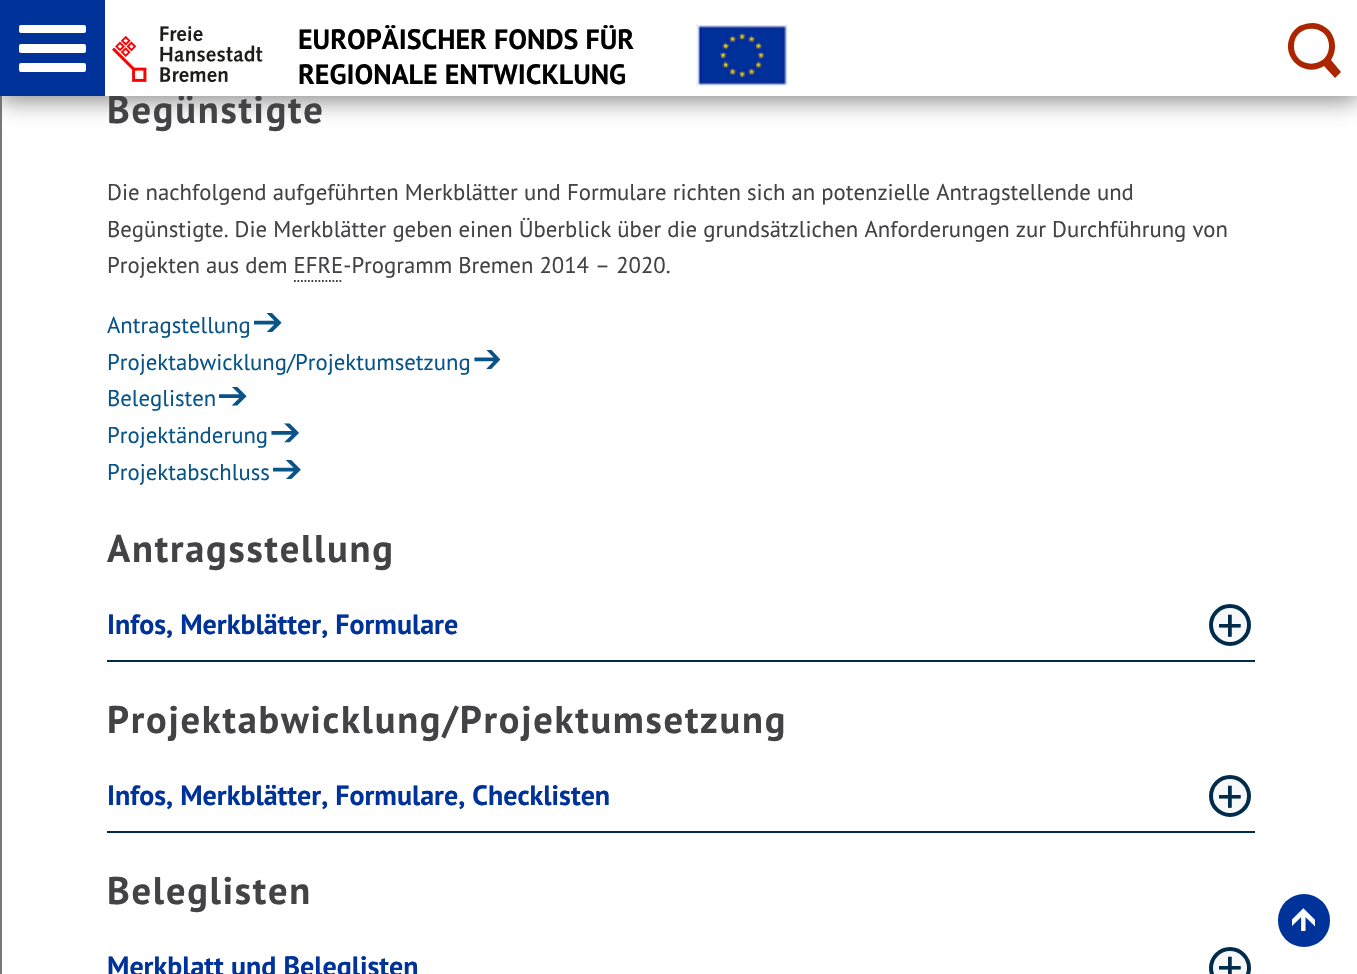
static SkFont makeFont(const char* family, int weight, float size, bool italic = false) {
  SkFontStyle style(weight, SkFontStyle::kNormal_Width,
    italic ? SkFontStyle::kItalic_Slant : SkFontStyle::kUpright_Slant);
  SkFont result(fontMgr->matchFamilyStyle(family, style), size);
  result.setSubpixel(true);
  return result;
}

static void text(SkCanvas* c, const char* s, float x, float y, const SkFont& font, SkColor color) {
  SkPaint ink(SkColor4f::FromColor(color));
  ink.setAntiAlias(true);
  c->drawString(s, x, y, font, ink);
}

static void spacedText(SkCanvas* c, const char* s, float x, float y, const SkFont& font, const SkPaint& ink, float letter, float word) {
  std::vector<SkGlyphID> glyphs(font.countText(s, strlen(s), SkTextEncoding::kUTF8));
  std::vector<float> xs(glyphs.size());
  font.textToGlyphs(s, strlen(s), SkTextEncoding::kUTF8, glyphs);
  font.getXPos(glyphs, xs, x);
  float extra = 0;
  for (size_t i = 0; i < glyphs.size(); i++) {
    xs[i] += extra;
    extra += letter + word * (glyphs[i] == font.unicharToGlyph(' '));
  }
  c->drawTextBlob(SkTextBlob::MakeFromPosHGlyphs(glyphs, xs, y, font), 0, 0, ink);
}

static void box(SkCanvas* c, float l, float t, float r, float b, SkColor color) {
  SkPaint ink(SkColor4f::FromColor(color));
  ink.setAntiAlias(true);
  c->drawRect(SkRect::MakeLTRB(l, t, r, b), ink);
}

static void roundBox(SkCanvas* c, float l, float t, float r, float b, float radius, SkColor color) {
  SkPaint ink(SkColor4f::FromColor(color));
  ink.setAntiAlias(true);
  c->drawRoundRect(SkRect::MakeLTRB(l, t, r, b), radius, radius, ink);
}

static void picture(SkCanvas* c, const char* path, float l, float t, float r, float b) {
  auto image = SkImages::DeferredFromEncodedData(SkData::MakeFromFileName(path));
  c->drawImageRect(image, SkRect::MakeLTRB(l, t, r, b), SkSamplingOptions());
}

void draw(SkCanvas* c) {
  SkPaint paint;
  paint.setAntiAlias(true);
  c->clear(0xffffffff);
  paint.setStyle(SkPaint::kStroke_Style);
  paint.setStrokeWidth(2);
  paint.setColor(0xff777777);
  c->drawRect(SkRect::MakeLTRB(1, -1, 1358, 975), paint);
  paint.setStyle(SkPaint::kFill_Style);
  paint.setColor(0xcc646464);
  paint.setMaskFilter(SkMaskFilter::MakeBlur(kNormal_SkBlurStyle, 11.5f));
  c->drawRect(SkRect::MakeLTRB(0, 4, 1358, 100), paint);
  paint.setMaskFilter(nullptr);
  box(c, 0, 0, 105, 96, 0xff003399);
  roundBox(c, 19, 25, 86, 33, 2, 0xffffffff);
  roundBox(c, 19, 44, 86, 53, 2, 0xffffffff);
  roundBox(c, 19, 63, 86, 72, 2, 0xffffffff);
  SkFont face1 = makeFont("PT Sans", 700, 38.5f);
  paint.setColor(0xff434345);
  spacedText(c, "Begünstigte", 107, 123, face1, paint, 1.75f, 0);
  box(c, 105, 0, 1357, 96, 0xffffffff);
  picture(c, "img_01.png", 112, 26, 263, 82);
  SkFont face2 = makeFont("PT Sans", 700, 28);
  text(c, "EUROPÄISCHER FONDS FÜR", 298, 49, face2, 0xff000000);
  text(c, "REGIONALE ENTWICKLUNG", 298, 84, face2, 0xff000000);
  picture(c, "img_02.png", 696, 24, 788, 86);
  paint.setColor(0xffab2600);
  c->drawPath(SkPathBuilder().moveTo(1341, 72).lineTo(1331, 60).cubicTo(1338, 50, 1336, 34, 1325, 27).cubicTo(1318, 22, 1310, 22, 1302, 25).cubicTo(1298, 26, 1295, 29, 1292, 33).cubicTo(1278, 55, 1303, 79, 1324, 66).lineTo(1335, 78).close().moveTo(1294, 46).cubicTo(1294, 23, 1329, 23, 1329, 46).cubicTo(1329, 69, 1294, 70, 1294, 46).close().detach(), paint);
  SkFont face3 = makeFont("PT Sans", 400, 22.75f);
  text(c, "Die nachfolgend aufgeführten Merkblätter und Formulare richten sich an potenzielle Antragstellende und", 107, 200, face3, 0xff434345);
  text(c, "Begünstigte. Die Merkblätter geben einen Überblick über die grundsätzlichen Anforderungen zur Durchführung von", 107, 237, face3, 0xff434345);
  text(c, "Projekten aus dem EFRE-Programm Bremen 2014 – 2020.", 107, 273, face3, 0xff434345);
  paint.setStyle(SkPaint::kStroke_Style);
  paint.setStrokeWidth(1.8f);
  paint.setColor(0xff434345);
  paint.setPathEffect(SkDashPathEffect::Make({{1.75f, 1.75f}}, 0));
  c->drawPath(SkPathBuilder().moveTo(294, 281).lineTo(343, 281).detach(), paint);
  paint.setPathEffect(nullptr);
  text(c, "Antragstellung", 107, 333, face3, 0xff085488);
  picture(c, "img_03.png", 254, 313, 282, 332);
  text(c, "Projektabwicklung/Projektumsetzung", 107, 370, face3, 0xff085488);
  picture(c, "img_04.png", 474, 350, 501, 369);
  text(c, "Beleglisten", 107, 406, face3, 0xff085488);
  picture(c, "img_05.png", 219, 387, 247, 406);
  text(c, "Projektänderung", 107, 443, face3, 0xff085488);
  picture(c, "img_06.png", 271, 423, 299, 443);
  text(c, "Projektabschluss", 107, 480, face3, 0xff085488);
  picture(c, "img_07.png", 273, 460, 301, 479);
  paint.setStyle(SkPaint::kFill_Style);
  spacedText(c, "Antragsstellung", 107, 562, face1, paint, 1.75f, 0);
  box(c, 107, 660, 1255, 662, 0xff002b4b);
  text(c, "Infos, Merkblätter, Formulare", 107, 634, face2, 0xff003399);
  paint.setColor(0xfff6f8fa);
  c->drawCircle(1230, 625, 19, paint);
  paint.setStyle(SkPaint::kStroke_Style);
  paint.setStrokeWidth(4);
  paint.setColor(0xff002b4b);
  c->drawCircle(1230, 625, 19, paint);
  SkFont face4 = makeFont("PT Sans", 400, 51);
  text(c, "+", 1217, 643, face4, 0xff002b4b);
  paint.setStyle(SkPaint::kFill_Style);
  paint.setColor(0xff434345);
  spacedText(c, "Projektabwicklung/Projektumsetzung", 107, 733, face1, paint, 1.75f, 0);
  box(c, 107, 831, 1255, 833, 0xff002b4b);
  text(c, "Infos, Merkblätter, Formulare, Checklisten", 107, 805, face2, 0xff003399);
  paint.setColor(0xfff6f8fa);
  c->drawCircle(1230, 796, 19, paint);
  paint.setStyle(SkPaint::kStroke_Style);
  paint.setColor(0xff002b4b);
  c->drawCircle(1230, 796, 19, paint);
  text(c, "+", 1217, 814, face4, 0xff002b4b);
  paint.setStyle(SkPaint::kFill_Style);
  paint.setColor(0xff434345);
  spacedText(c, "Beleglisten", 107, 904, face1, paint, 1.75f, 0);
  text(c, "Merkblatt und Beleglisten", 107, 976, face2, 0xff003399);
  paint.setColor(0xfff6f8fa);
  c->drawCircle(1230, 968, 19, paint);
  paint.setStyle(SkPaint::kStroke_Style);
  paint.setColor(0xff002b4b);
  c->drawCircle(1230, 968, 19, paint);
  text(c, "+", 1217, 985, face4, 0xff002b4b);
  roundBox(c, 1278, 894, 1330, 947, 26, 0xff003399);
  picture(c, "img_08.png", 1292, 908, 1315, 931);
}
